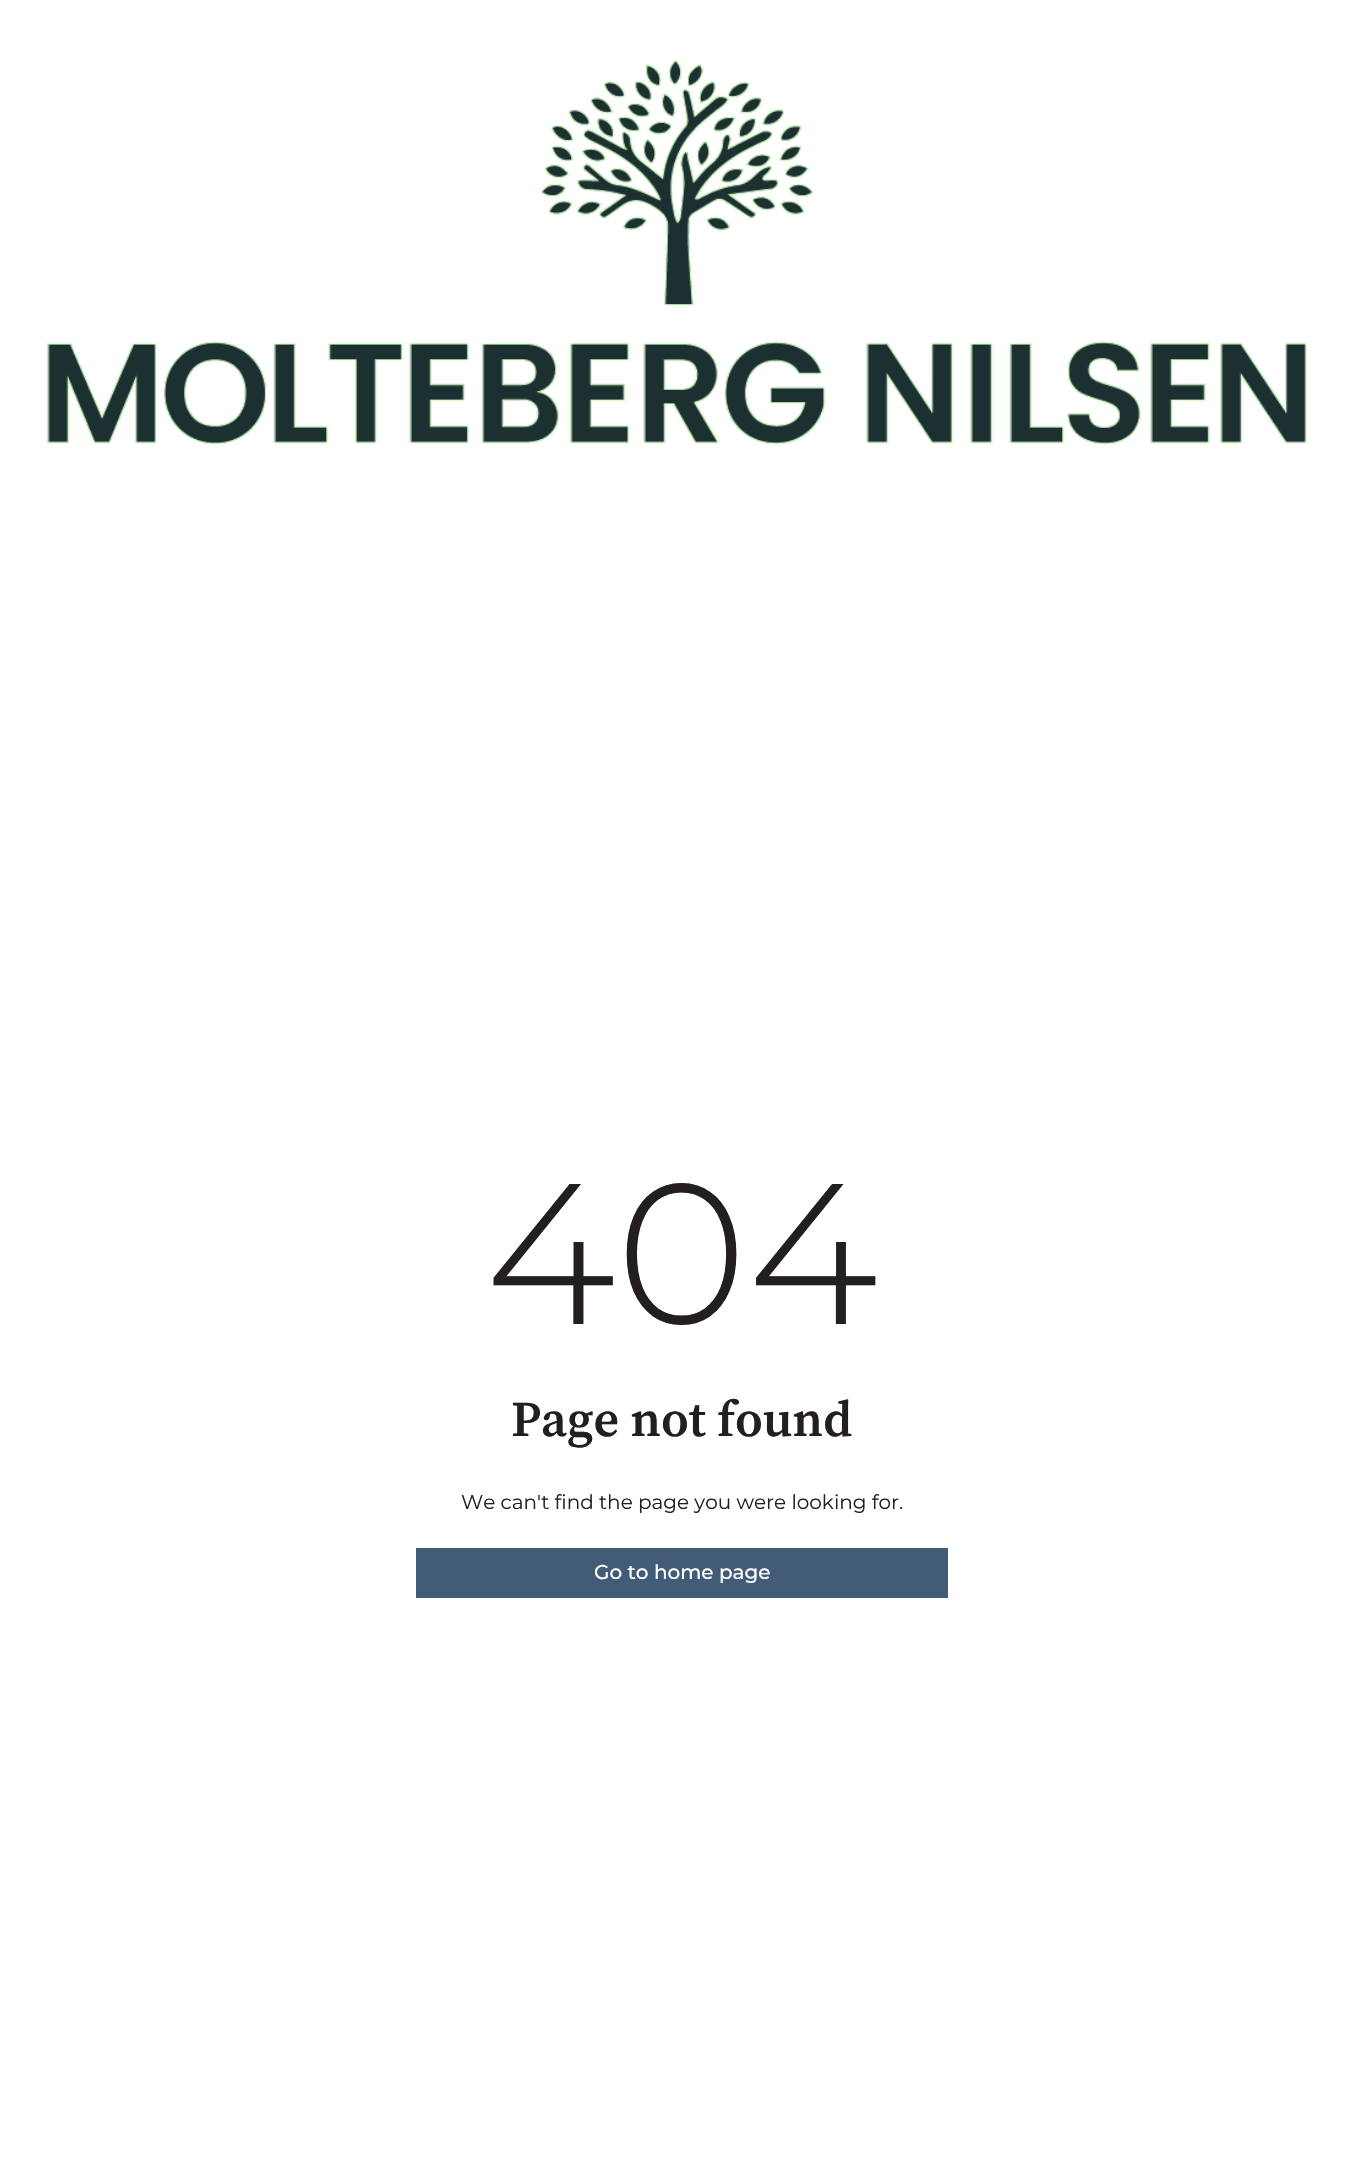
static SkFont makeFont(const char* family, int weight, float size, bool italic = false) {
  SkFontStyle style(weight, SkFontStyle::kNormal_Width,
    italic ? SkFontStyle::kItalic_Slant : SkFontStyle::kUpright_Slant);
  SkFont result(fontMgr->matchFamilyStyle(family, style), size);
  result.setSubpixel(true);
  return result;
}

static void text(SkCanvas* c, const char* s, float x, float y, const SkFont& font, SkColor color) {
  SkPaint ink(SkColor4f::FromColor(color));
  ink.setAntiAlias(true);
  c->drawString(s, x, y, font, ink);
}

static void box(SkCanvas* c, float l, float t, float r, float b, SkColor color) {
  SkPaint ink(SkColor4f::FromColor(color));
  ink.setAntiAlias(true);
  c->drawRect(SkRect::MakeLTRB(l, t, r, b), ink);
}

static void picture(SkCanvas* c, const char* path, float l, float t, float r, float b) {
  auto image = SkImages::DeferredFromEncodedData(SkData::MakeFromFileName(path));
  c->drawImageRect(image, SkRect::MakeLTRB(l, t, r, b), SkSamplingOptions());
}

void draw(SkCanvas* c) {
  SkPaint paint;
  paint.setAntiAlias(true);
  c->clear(0xffffffff);
  picture(c, "img_01.png", 46, 59, 1308, 445);
  SkFont face1 = makeFont("Montserrat", 300, 200);
  text(c, "404", 485, 1324, face1, 0xff231f20);
  SkFont face2 = makeFont("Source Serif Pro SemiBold", 600, 50);
  text(c, "Page not found", 511, 1436, face2, 0xff231f20);
  SkFont face3 = makeFont("Montserrat", 400, 20);
  text(c, "We can't find the page you were looking for.", 461, 1509, face3, 0xff231f20);
  box(c, 416, 1548, 948, 1598, 0xff425b76);
  SkFont face4 = makeFont("Montserrat", 500, 20);
  text(c, "Go to home page", 594, 1579, face4, 0xffffffff);
}
